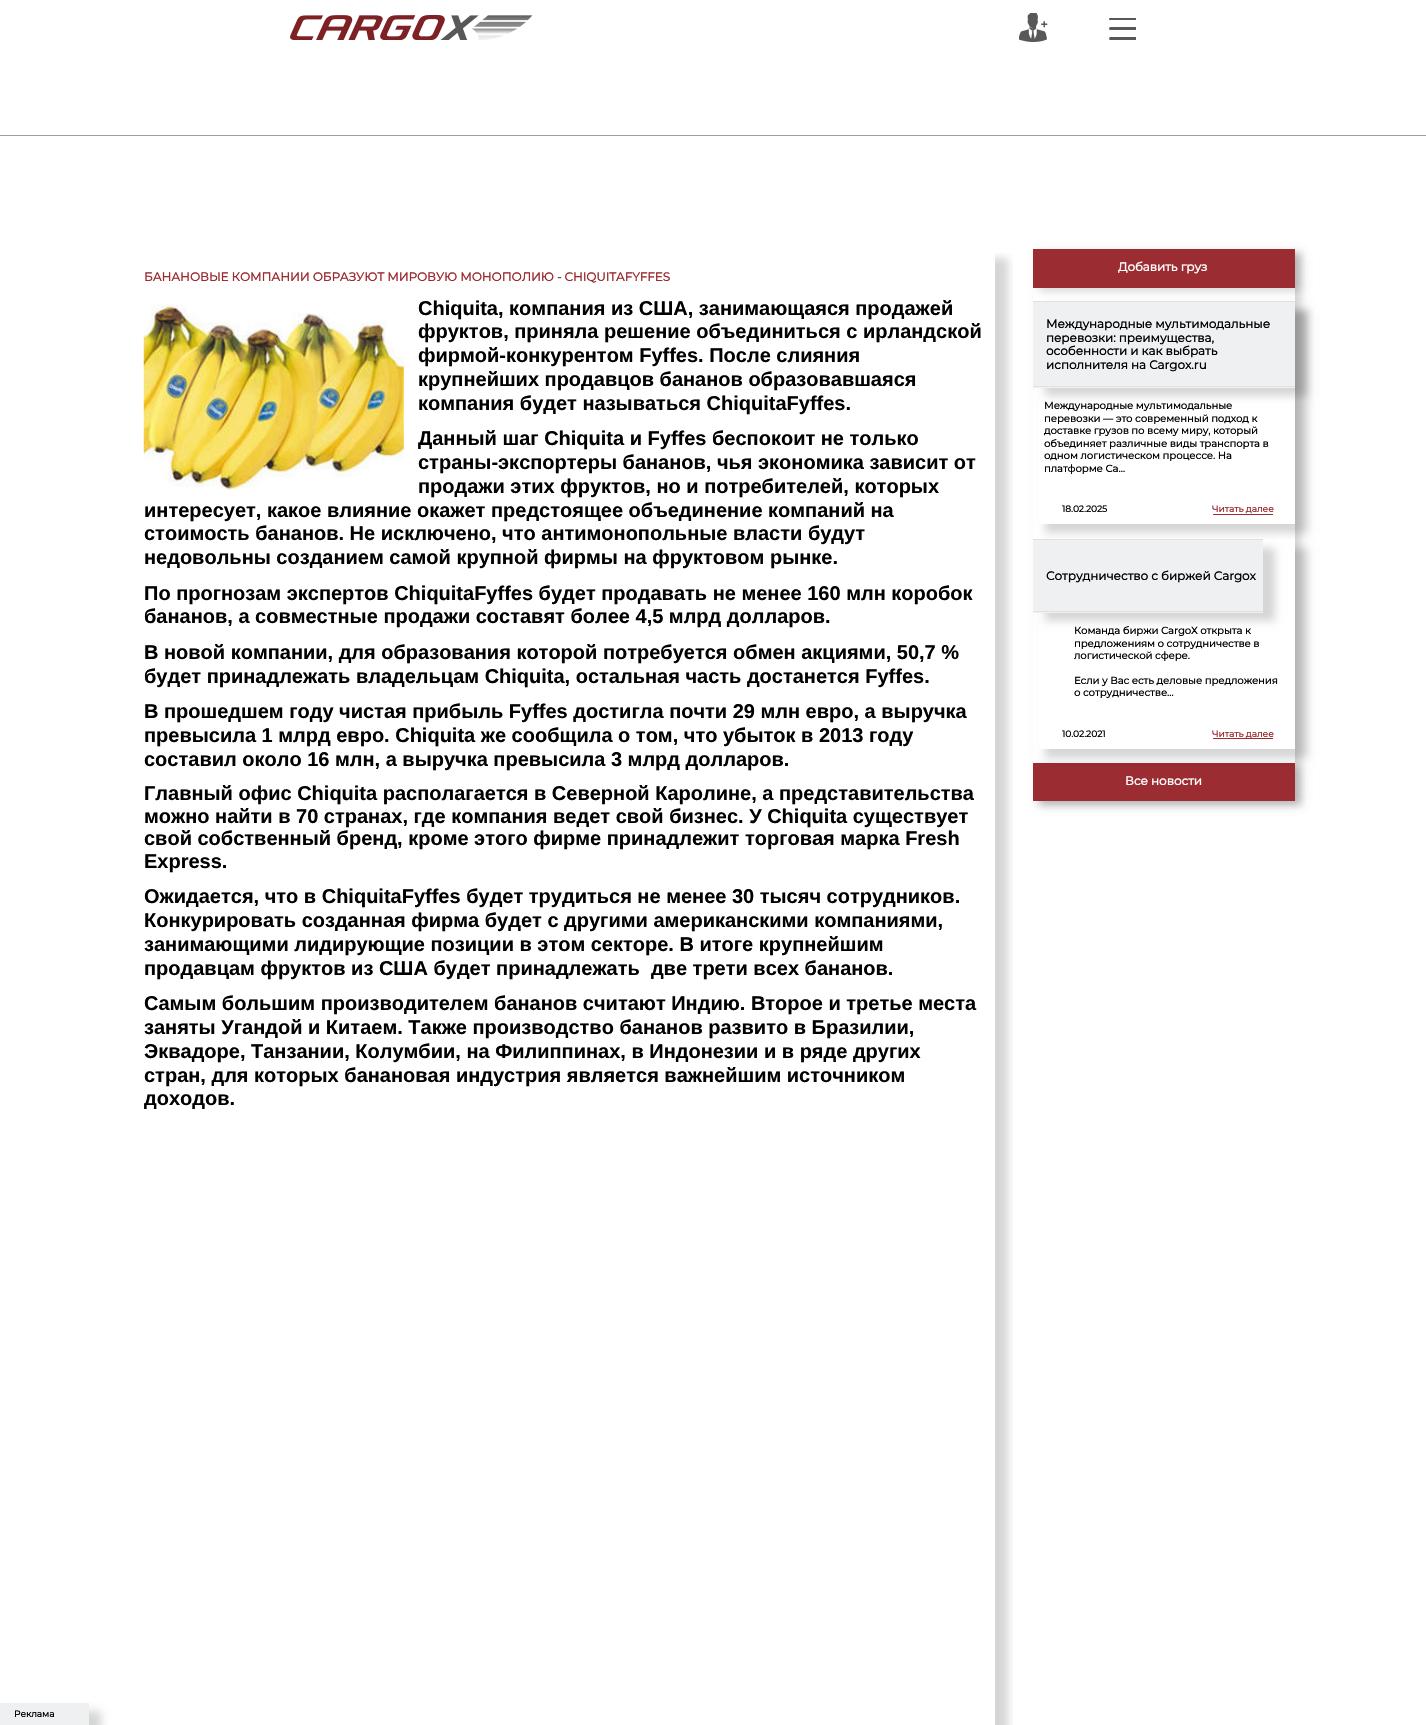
static SkFont makeFont(const char* family, int weight, float size, bool italic = false) {
  SkFontStyle style(weight, SkFontStyle::kNormal_Width,
    italic ? SkFontStyle::kItalic_Slant : SkFontStyle::kUpright_Slant);
  SkFont result(fontMgr->matchFamilyStyle(family, style), size);
  result.setSubpixel(true);
  return result;
}

static void text(SkCanvas* c, const char* s, float x, float y, const SkFont& font, SkColor color) {
  SkPaint ink(SkColor4f::FromColor(color));
  ink.setAntiAlias(true);
  c->drawString(s, x, y, font, ink);
}

static void box(SkCanvas* c, float l, float t, float r, float b, SkColor color) {
  SkPaint ink(SkColor4f::FromColor(color));
  ink.setAntiAlias(true);
  c->drawRect(SkRect::MakeLTRB(l, t, r, b), ink);
}

static void roundBox(SkCanvas* c, float l, float t, float r, float b, float radius, SkColor color) {
  SkPaint ink(SkColor4f::FromColor(color));
  ink.setAntiAlias(true);
  c->drawRoundRect(SkRect::MakeLTRB(l, t, r, b), radius, radius, ink);
}

static void picture(SkCanvas* c, const char* path, float l, float t, float r, float b) {
  auto image = SkImages::DeferredFromEncodedData(SkData::MakeFromFileName(path));
  c->drawImageRect(image, SkRect::MakeLTRB(l, t, r, b), SkSamplingOptions());
}

void draw(SkCanvas* c) {
  SkPaint paint;
  paint.setAntiAlias(true);
  c->clear(0xffffffff);
  picture(c, "img_01.png", 290, 15, 533, 40);
  picture(c, "img_02.png", 1019, 13, 1048, 42);
  paint.setColor(0xff585858);
  c->drawPath(SkPathBuilder().moveTo(1110, 18).lineTo(1136, 18).lineTo(1136, 20).lineTo(1110, 20).cubicTo(1109.5f, 20, 1109, 19.5f, 1109, 19).cubicTo(1109, 18.5f, 1109.5f, 18, 1110, 18).close().detach(), paint);
  c->save();
  c->clipRect(SkRect::MakeLTRB(1109, 18, 1136, 40));
  roundBox(c, 1109, 27, 1137, 30, 1.5f, 0xff585858);
  roundBox(c, 1109, 37, 1137, 40, 1.5f, 0xff585858);
  c->restore();
  box(c, 0, 135, 1426, 136, 0xff9d9d9d);
  c->save();
  c->clipRect(SkRect::MakeLTRB(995, 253, 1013, 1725));
  paint.setColor(0x29000000);
  paint.setMaskFilter(SkMaskFilter::MakeBlur(kNormal_SkBlurStyle, 4));
  c->drawRect(SkRect::MakeLTRB(145, 258, 1008, 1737), paint);
  paint.setMaskFilter(nullptr);
  c->restore();
  SkFont face1 = makeFont("Montserrat", 700, 11.9f);
  text(c, "БАНАНОВЫЕ КОМПАНИИ ОБРАЗУЮТ МИРОВУЮ МОНОПОЛИЮ - CHIQUITAFYFFES", 144, 281, face1, 0xff9b2c31);
  picture(c, "img_03.png", 143, 304, 404, 490);
  SkFont face2 = makeFont("Liberation Sans", 700, 20);
  text(c, "Chiquita, компания из США, занимающаяся продажей", 418, 315, face2, 0xff000000);
  text(c, "фруктов, приняла решение объединиться с ирландской", 418, 338, face2, 0xff000000);
  text(c, "фирмой-конкурентом Fyffes. После слияния", 418, 362, face2, 0xff000000);
  text(c, "крупнейших продавцов бананов образовавшаяся", 418, 386, face2, 0xff000000);
  text(c, "компания будет называться ChiquitaFyffes.", 418, 410, face2, 0xff000000);
  text(c, "Данный шаг Chiquita и Fyffes беспокоит не только", 418, 445, face2, 0xff000000);
  text(c, "страны-экспортеры бананов, чья экономика зависит от", 418, 469, face2, 0xff000000);
  text(c, "продажи этих фруктов, но и потребителей, которых", 418, 493, face2, 0xff000000);
  text(c, "интересует, какое влияние окажет предстоящее объединение компаний на", 144, 517, face2, 0xff000000);
  text(c, "стоимость бананов. Не исключено, что антимонопольные власти будут", 144, 540, face2, 0xff000000);
  text(c, "недовольны созданием самой крупной фирмы на фруктовом рынке.", 144, 564, face2, 0xff000000);
  text(c, "По прогнозам экспертов ChiquitaFyffes будет продавать не менее 160 млн коробок", 144, 600, face2, 0xff000000);
  text(c, "бананов, а совместные продажи составят более 4,5 млрд долларов.", 144, 623, face2, 0xff000000);
  text(c, "В новой компании, для образования которой потребуется обмен акциями, 50,7 %", 144, 659, face2, 0xff000000);
  text(c, "будет принадлежать владельцам Chiquita, остальная часть достанется Fyffes.", 144, 683, face2, 0xff000000);
  text(c, "В прошедшем году чистая прибыль Fyffes достигла почти 29 млн евро, а выручка", 144, 718, face2, 0xff000000);
  text(c, "превысила 1 млрд евро. Chiquita же сообщила о том, что убыток в 2013 году", 144, 742, face2, 0xff000000);
  text(c, "составил около 16 млн, а выручка превысила 3 млрд долларов.", 144, 766, face2, 0xff000000);
  text(c, "Главный офис Chiquita располагается в Северной Каролине, а представительства", 144, 800, face2, 0xff000000);
  text(c, "можно найти в 70 странах, где компания ведет свой бизнес. У Chiquita существует", 144, 823, face2, 0xff000000);
  text(c, "свой собственный бренд, кроме этого фирме принадлежит торговая марка Fresh", 144, 845, face2, 0xff000000);
  text(c, "Express.", 144, 868, face2, 0xff000000);
  text(c, "Ожидается, что в ChiquitaFyffes будет трудиться не менее 30 тысяч сотрудников.", 144, 903, face2, 0xff000000);
  text(c, "Конкурировать созданная фирма будет с другими американскими компаниями,", 144, 927, face2, 0xff000000);
  text(c, "занимающими лидирующие позиции в этом секторе. В итоге крупнейшим", 144, 951, face2, 0xff000000);
  text(c, "продавцам фруктов из США будет принадлежать  две трети всех бананов.", 144, 975, face2, 0xff000000);
  text(c, "Самым большим производителем бананов считают Индию. Второе и третье места", 144, 1010, face2, 0xff000000);
  text(c, "заняты Угандой и Китаем. Также производство бананов развито в Бразилии,", 144, 1034, face2, 0xff000000);
  text(c, "Эквадоре, Танзании, Колумбии, на Филиппинах, в Индонезии и в ряде других", 144, 1058, face2, 0xff000000);
  text(c, "стран, для которых банановая индустрия является важнейшим источником", 144, 1082, face2, 0xff000000);
  text(c, "доходов.", 144, 1105, face2, 0xff000000);
  c->save();
  c->clipPath(SkPathBuilder(SkPathFillType::kEvenOdd).moveTo(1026, 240).lineTo(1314, 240).lineTo(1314, 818).lineTo(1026, 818).close().moveTo(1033, 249).lineTo(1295, 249).lineTo(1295, 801).lineTo(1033, 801).close().detach(), true);
  paint.setMaskFilter(SkMaskFilter::MakeBlur(kNormal_SkBlurStyle, 4));
  c->drawRect(SkRect::MakeLTRB(1039, 253, 1301, 805), paint);
  paint.setMaskFilter(nullptr);
  c->restore();
  paint.setMaskFilter(SkMaskFilter::MakeBlur(kNormal_SkBlurStyle, 4));
  c->drawRect(SkRect::MakeLTRB(1039, 253, 1301, 291), paint);
  paint.setMaskFilter(nullptr);
  box(c, 1033, 249, 1295, 288, 0xff9b2c31);
  text(c, "Добавить груз", 1118, 271, face1, 0xffffffff);
  paint.setMaskFilter(SkMaskFilter::MakeBlur(kNormal_SkBlurStyle, 4));
  c->drawRect(SkRect::MakeLTRB(1045, 310, 1308, 533), paint);
  paint.setMaskFilter(nullptr);
  box(c, 1039, 388, 1295, 524, 0xffffffff);
  paint.setMaskFilter(SkMaskFilter::MakeBlur(kNormal_SkBlurStyle, 4));
  c->drawRect(SkRect::MakeLTRB(1045, 310, 1308, 396), paint);
  paint.setMaskFilter(nullptr);
  box(c, 1033, 302, 1295, 388, 0xffeef0f2);
  box(c, 1033, 301, 1295, 302, 0xffdee2e6);
  box(c, 1033, 386, 1295, 387, 0xffdee2e6);
  text(c, "Международные мультимодальные", 1046, 328, face1, 0xff000000);
  text(c, "перевозки: преимущества,", 1046, 342, face1, 0xff000000);
  text(c, "особенности и как выбрать", 1046, 355, face1, 0xff000000);
  text(c, "исполнителя на Cargox.ru", 1046, 369, face1, 0xff000000);
  SkFont face3 = makeFont("Montserrat", 700, 10);
  text(c, "Международные мультимодальные", 1044, 409, face3, 0xff000000);
  text(c, "перевозки — это современный подход к", 1044, 422, face3, 0xff000000);
  text(c, "доставке грузов по всему миру, который", 1044, 434, face3, 0xff000000);
  text(c, "объединяет различные виды транспорта в", 1044, 447, face3, 0xff000000);
  text(c, "одном логистическом процессе. На", 1044, 459, face3, 0xff000000);
  text(c, "платформе Ca…", 1044, 472, face3, 0xff000000);
  SkFont face4 = makeFont("Montserrat", 700, 9);
  text(c, "18.02.2025", 1062, 512, face4, 0xff000000);
  text(c, "Читать далее", 1212, 512, face4, 0xff9b2c31);
  box(c, 1213, 514, 1273, 515, 0xff9b2c31);
  paint.setMaskFilter(SkMaskFilter::MakeBlur(kNormal_SkBlurStyle, 4));
  c->drawRect(SkRect::MakeLTRB(1039, 766, 1301, 805), paint);
  paint.setMaskFilter(nullptr);
  box(c, 1033, 763, 1295, 801, 0xff9b2c31);
  paint.setMaskFilter(SkMaskFilter::MakeBlur(kNormal_SkBlurStyle, 4));
  c->drawRect(SkRect::MakeLTRB(1045, 548, 1308, 758), paint);
  paint.setMaskFilter(nullptr);
  box(c, 1039, 539, 1295, 749, 0xffffffff);
  paint.setMaskFilter(SkMaskFilter::MakeBlur(kNormal_SkBlurStyle, 4));
  c->drawRect(SkRect::MakeLTRB(1045, 548, 1275, 621), paint);
  paint.setMaskFilter(nullptr);
  box(c, 1033, 540, 1263, 613, 0xffeef0f2);
  box(c, 1033, 539, 1263, 540, 0xffdee2e6);
  box(c, 1033, 611, 1263, 612, 0xffdee2e6);
  text(c, "Сотрудничество с биржей Cargox", 1046, 580, face1, 0xff000000);
  text(c, "Команда биржи CargoX открыта к", 1074, 634, face3, 0xff000000);
  text(c, "предложениям о сотрудничестве в", 1074, 647, face3, 0xff000000);
  text(c, "логистической сфере.", 1074, 659, face3, 0xff000000);
  text(c, "Если у Вас есть деловые предложения", 1074, 684, face3, 0xff000000);
  text(c, "о сотрудничестве…", 1074, 696, face3, 0xff000000);
  text(c, "10.02.2021", 1062, 737, face4, 0xff000000);
  box(c, 1213, 738, 1273, 739, 0xff9b2c31);
  text(c, "Читать далее", 1212, 737, face4, 0xff9b2c31);
  text(c, "Все новости", 1125, 785, face1, 0xffffffff);
  paint.setMaskFilter(SkMaskFilter::MakeBlur(kNormal_SkBlurStyle, 4));
  c->drawRect(SkRect::MakeLTRB(13, 1711, 101, 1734), paint);
  paint.setMaskFilter(nullptr);
  box(c, 0, 1703, 89, 1725, 0xffeef0f2);
  text(c, "Реклама", 14, 1717, face4, 0xff000000);
}
